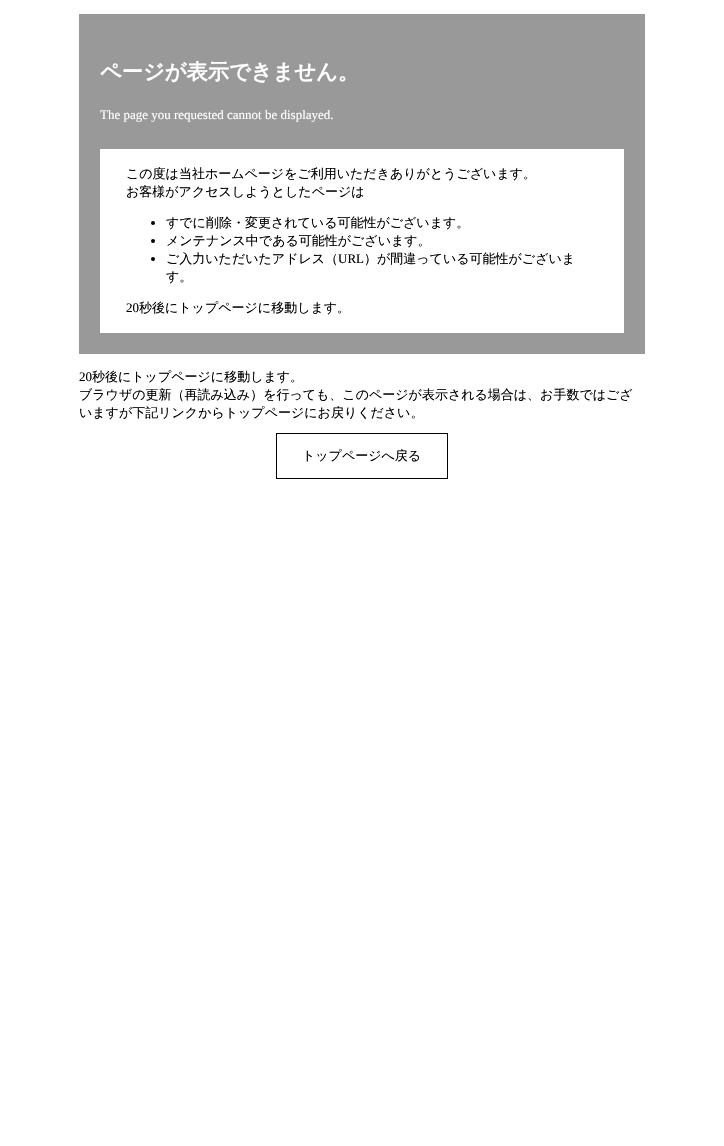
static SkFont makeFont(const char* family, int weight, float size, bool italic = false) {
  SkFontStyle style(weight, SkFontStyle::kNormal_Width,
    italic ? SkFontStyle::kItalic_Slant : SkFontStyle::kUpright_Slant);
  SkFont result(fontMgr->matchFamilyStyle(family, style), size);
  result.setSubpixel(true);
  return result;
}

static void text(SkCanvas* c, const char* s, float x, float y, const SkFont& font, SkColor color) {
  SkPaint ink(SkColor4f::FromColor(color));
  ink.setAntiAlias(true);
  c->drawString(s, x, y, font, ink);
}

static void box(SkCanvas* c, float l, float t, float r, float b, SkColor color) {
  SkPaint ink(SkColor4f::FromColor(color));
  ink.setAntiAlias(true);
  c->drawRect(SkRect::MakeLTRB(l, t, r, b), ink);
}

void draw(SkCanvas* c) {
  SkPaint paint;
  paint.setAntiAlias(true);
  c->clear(0xffffffff);
  box(c, 79, 14, 645, 354, 0xff999999);
  SkFont face1 = makeFont("WenQuanYi Zen Hei", 700, 21.25f);
  text(c, "ページが表示できません。", 100, 79, face1, 0xffffffff);
  SkFont face2 = makeFont("Liberation Serif", 400, 13);
  text(c, "The page you requested cannot be displayed.", 100, 119, face2, 0xffffffff);
  box(c, 100, 149, 624, 333, 0xffffffff);
  SkFont face3 = makeFont("WenQuanYi Zen Hei", 500, 13);
  text(c, "この度は当社ホームページをご利用いただきありがとうございます。", 126, 178, face3, 0xff000000);
  text(c, "お客様がアクセスしようとしたページは", 126, 196, face3, 0xff000000);
  paint.setColor(0xff000000);
  c->drawCircle(153, 223, 2, paint);
  text(c, "すでに削除・変更されている可能性がございます。", 166, 227, face3, 0xff000000);
  c->drawCircle(153, 241, 2, paint);
  text(c, "メンテナンス中である可能性がございます。", 166, 245, face3, 0xff000000);
  c->drawCircle(153, 259, 2, paint);
  text(c, "ご入力いただいたアドレス（", 166, 263, face3, 0xff000000);
  text(c, "URL", 338, 263, face2, 0xff000000);
  text(c, "）が間違っている可能性がございま", 364, 263, face3, 0xff000000);
  text(c, "す。", 166, 281, face3, 0xff000000);
  text(c, "20", 126, 312, face2, 0xff000000);
  text(c, "秒後にトップページに移動します。", 139, 312, face3, 0xff000000);
  text(c, "20", 79, 381, face2, 0xff000000);
  text(c, "秒後にトップページに移動します。", 92, 381, face3, 0xff000000);
  text(c, "ブラウザの更新（再読み込み）を行っても、このページが表示される場合は、お手数ではござ", 79, 399, face3, 0xff000000);
  text(c, "いますが下記リンクからトップページにお戻りください。", 79, 417, face3, 0xff000000);
  paint.setStyle(SkPaint::kStroke_Style);
  paint.setStrokeWidth(1);
  c->drawRect(SkRect::MakeLTRB(276.5f, 433.5f, 447.5f, 478.5f), paint);
  text(c, "トップページへ戻る", 302, 460, face3, 0xff000000);
}
